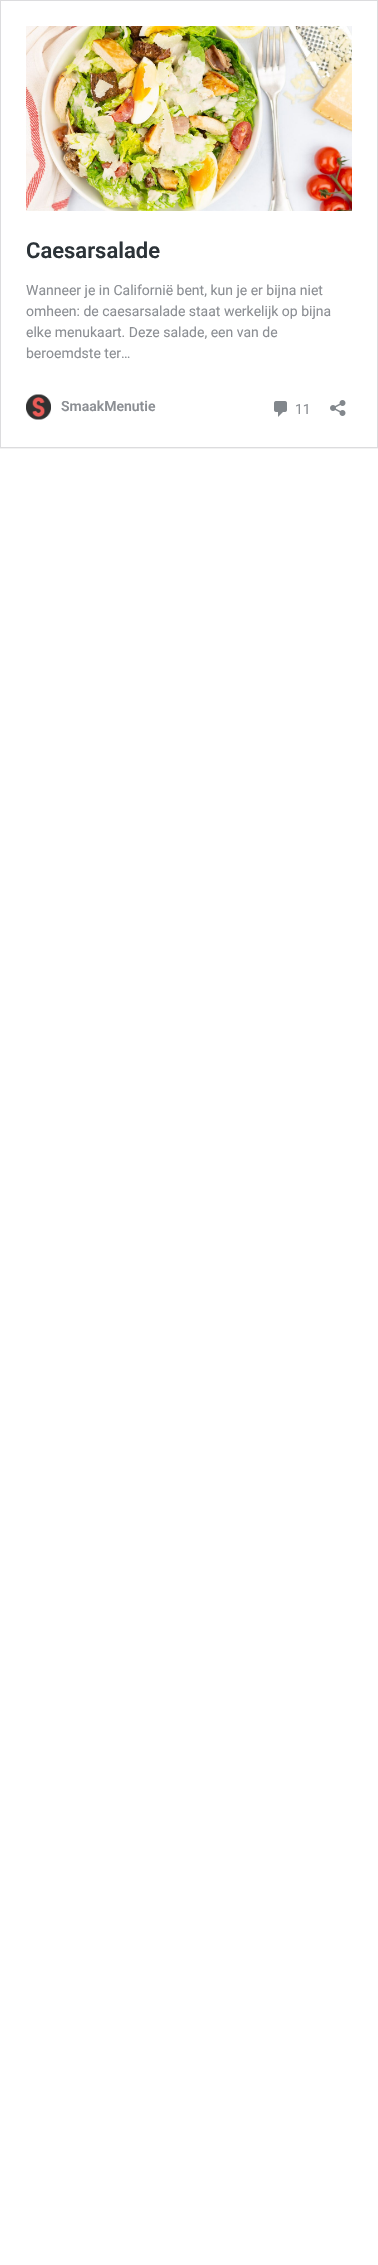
static SkFont makeFont(const char* family, int weight, float size, bool italic = false) {
  SkFontStyle style(weight, SkFontStyle::kNormal_Width,
    italic ? SkFontStyle::kItalic_Slant : SkFontStyle::kUpright_Slant);
  SkFont result(fontMgr->matchFamilyStyle(family, style), size);
  result.setSubpixel(true);
  return result;
}

static void text(SkCanvas* c, const char* s, float x, float y, const SkFont& font, SkColor color) {
  SkPaint ink(SkColor4f::FromColor(color));
  ink.setAntiAlias(true);
  c->drawString(s, x, y, font, ink);
}

static void picture(SkCanvas* c, const char* path, float l, float t, float r, float b) {
  auto image = SkImages::DeferredFromEncodedData(SkData::MakeFromFileName(path));
  c->drawImageRect(image, SkRect::MakeLTRB(l, t, r, b), SkSamplingOptions());
}

void draw(SkCanvas* c) {
  SkPaint paint;
  paint.setAntiAlias(true);
  c->clear(0xffffffff);
  c->save();
  c->clipRect(SkRect::MakeLTRB(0, 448, 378, 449));
  paint.setColor(0x0d000000);
  paint.setMaskFilter(SkMaskFilter::MakeBlur(kNormal_SkBlurStyle, 0.5f));
  c->drawRect(SkRect::MakeLTRB(0, 1, 378, 449), paint);
  paint.setMaskFilter(nullptr);
  c->restore();
  paint.setStyle(SkPaint::kStroke_Style);
  paint.setStrokeWidth(1);
  paint.setColor(0xffdcdcde);
  c->drawRect(SkRect::MakeLTRB(0.5f, 0.5f, 377.5f, 447.5f), paint);
  picture(c, "img_01.png", 26, 26, 352, 211);
  SkFont face1 = makeFont("Roboto", 600, 22);
  text(c, "Caesarsalade", 26, 258, face1, 0xff2c3338);
  SkFont face2 = makeFont("Roboto", 400, 14);
  text(c, "Wanneer je in Californië bent, kun je er bijna niet", 26, 295, face2, 0xff8c8f94);
  text(c, "omheen: de caesarsalade staat werkelijk op bijna", 26, 316, face2, 0xff8c8f94);
  text(c, "elke menukaart. Deze salade, een van de", 26, 337, face2, 0xff8c8f94);
  text(c, "beroemdste ter…", 26, 358, face2, 0xff8c8f94);
  picture(c, "img_02.png", 26, 394, 51, 420);
  SkFont face3 = makeFont("Roboto", 600, 14);
  text(c, "SmaakMenutie", 61, 411, face3, 0xff8c8f94);
  picture(c, "img_03.png", 274, 401, 287, 417);
  text(c, "11", 295, 414, face2, 0xff8c8f94);
  picture(c, "img_04.png", 330, 400, 346, 416);
}
